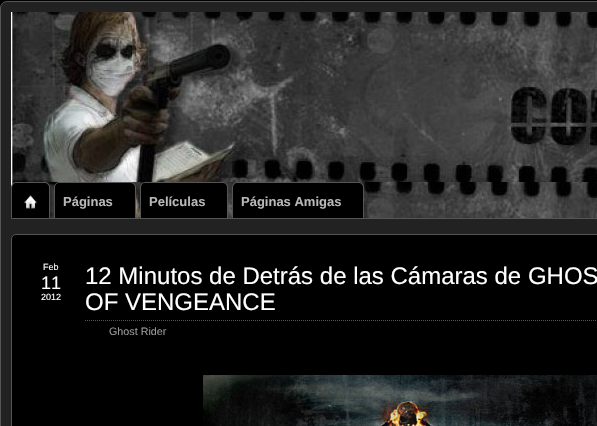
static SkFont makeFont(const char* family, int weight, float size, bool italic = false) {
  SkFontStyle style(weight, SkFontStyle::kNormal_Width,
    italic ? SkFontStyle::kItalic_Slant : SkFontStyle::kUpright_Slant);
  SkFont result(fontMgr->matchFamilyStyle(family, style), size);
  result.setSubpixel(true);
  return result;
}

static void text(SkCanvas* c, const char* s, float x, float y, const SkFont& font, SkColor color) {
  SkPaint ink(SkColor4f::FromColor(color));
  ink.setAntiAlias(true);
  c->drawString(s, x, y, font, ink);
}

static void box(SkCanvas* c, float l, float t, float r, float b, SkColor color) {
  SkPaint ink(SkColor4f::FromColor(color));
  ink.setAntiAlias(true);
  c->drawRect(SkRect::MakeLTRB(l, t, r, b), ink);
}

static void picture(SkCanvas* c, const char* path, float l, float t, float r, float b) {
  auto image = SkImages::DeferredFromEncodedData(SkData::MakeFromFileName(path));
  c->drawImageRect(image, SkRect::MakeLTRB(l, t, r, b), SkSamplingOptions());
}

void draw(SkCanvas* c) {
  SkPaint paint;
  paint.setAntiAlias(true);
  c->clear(0xff000000);
  paint.setColor(0xff222222);
  c->drawRoundRect(SkRect::MakeLTRB(0.5f, 1.5f, 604.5f, 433.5f), 6.5f, 6.5f, paint);
  paint.setStyle(SkPaint::kStroke_Style);
  paint.setStrokeWidth(1);
  paint.setColor(0xff555555);
  c->drawRoundRect(SkRect::MakeLTRB(0.5f, 1.5f, 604.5f, 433.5f), 6.5f, 6.5f, paint);
  picture(c, "img_01.png", 11, 12, 597, 218);
  box(c, 50, 218, 597, 219, 0xff555555);
  c->drawPath(SkPathBuilder().moveTo(16, 182.5f).lineTo(45, 182.5f).cubicTo(47.5f, 182.5f, 49.5f, 184.5f, 49.5f, 187).lineTo(49.5f, 218.5f).lineTo(11.5f, 218.5f).lineTo(11.5f, 187).cubicTo(11.5f, 184.5f, 13.5f, 182.5f, 16, 182.5f).close().detach(), paint);
  paint.setStyle(SkPaint::kFill_Style);
  paint.setColor(0xff000000);
  c->drawPath(SkPathBuilder().moveTo(17, 183).lineTo(44, 183).cubicTo(47, 183, 49, 185, 49, 188).lineTo(49, 218).lineTo(12, 218).lineTo(12, 188).cubicTo(12, 185, 14, 183, 17, 183).close().detach(), paint);
  picture(c, "img_02.png", 24, 195, 37, 209);
  paint.setStyle(SkPaint::kStroke_Style);
  paint.setColor(0xff555555);
  c->drawPath(SkPathBuilder().moveTo(59, 182.5f).lineTo(131, 182.5f).cubicTo(133.5f, 182.5f, 135.5f, 184.5f, 135.5f, 187).lineTo(135.5f, 218.5f).lineTo(54.5f, 218.5f).lineTo(54.5f, 187).cubicTo(54.5f, 184.5f, 56.5f, 182.5f, 59, 182.5f).close().detach(), paint);
  paint.setStyle(SkPaint::kFill_Style);
  paint.setColor(0xff000000);
  c->drawPath(SkPathBuilder().moveTo(60, 183).lineTo(130, 183).cubicTo(133, 183, 135, 185, 135, 188).lineTo(135, 218).lineTo(55, 218).lineTo(55, 188).cubicTo(55, 185, 57, 183, 60, 183).close().detach(), paint);
  SkFont face1 = makeFont("Liberation Sans", 700, 13);
  text(c, "Páginas", 63, 206, face1, 0xffb8b8b8);
  paint.setStyle(SkPaint::kStroke_Style);
  paint.setColor(0xff555555);
  c->drawPath(SkPathBuilder().moveTo(145, 182.5f).lineTo(223, 182.5f).cubicTo(225.5f, 182.5f, 227.5f, 184.5f, 227.5f, 187).lineTo(227.5f, 218.5f).lineTo(140.5f, 218.5f).lineTo(140.5f, 187).cubicTo(140.5f, 184.5f, 142.5f, 182.5f, 145, 182.5f).close().detach(), paint);
  paint.setStyle(SkPaint::kFill_Style);
  paint.setColor(0xff000000);
  c->drawPath(SkPathBuilder().moveTo(146, 183).lineTo(222, 183).cubicTo(225, 183, 227, 185, 227, 188).lineTo(227, 218).lineTo(141, 218).lineTo(141, 188).cubicTo(141, 185, 143, 183, 146, 183).close().detach(), paint);
  text(c, "Películas", 149, 206, face1, 0xffb8b8b8);
  paint.setStyle(SkPaint::kStroke_Style);
  paint.setColor(0xff555555);
  c->drawPath(SkPathBuilder().moveTo(237, 182.5f).lineTo(359, 182.5f).cubicTo(361.5f, 182.5f, 363.5f, 184.5f, 363.5f, 187).lineTo(363.5f, 218.5f).lineTo(232.5f, 218.5f).lineTo(232.5f, 187).cubicTo(232.5f, 184.5f, 234.5f, 182.5f, 237, 182.5f).close().detach(), paint);
  paint.setStyle(SkPaint::kFill_Style);
  paint.setColor(0xff000000);
  c->drawPath(SkPathBuilder().moveTo(238, 183).lineTo(358, 183).cubicTo(361, 183, 363, 185, 363, 188).lineTo(363, 218).lineTo(233, 218).lineTo(233, 188).cubicTo(233, 185, 235, 183, 238, 183).close().detach(), paint);
  text(c, "Páginas Amigas", 241, 206, face1, 0xffb8b8b8);
  c->drawRoundRect(SkRect::MakeLTRB(11.5f, 234.5f, 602.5f, 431.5f), 4.5f, 4.5f, paint);
  paint.setStyle(SkPaint::kStroke_Style);
  paint.setColor(0xff555555);
  c->drawRoundRect(SkRect::MakeLTRB(11.5f, 234.5f, 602.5f, 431.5f), 4.5f, 4.5f, paint);
  SkFont face2 = makeFont("Liberation Sans", 400, 9);
  text(c, "Feb", 43, 270, face2, 0xffffffff);
  SkFont face3 = makeFont("Liberation Sans", 400, 18);
  text(c, "11", 41, 289, face3, 0xffffffff);
  text(c, "2012", 41, 300, face2, 0xffffffff);
  paint.setPathEffect(SkDashPathEffect::Make({{1, 1}}, 0));
  c->drawPath(SkPathBuilder().moveTo(85, 320.5f).lineTo(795, 320.5f).detach(), paint);
  paint.setPathEffect(nullptr);
  SkFont face4 = makeFont("Liberation Sans", 400, 24);
  text(c, "12 Minutos de Detrás de las Cámaras de GHOS", 85, 284, face4, 0xffffffff);
  text(c, "OF VENGEANCE", 85, 310, face4, 0xffffffff);
  SkFont face5 = makeFont("Liberation Sans", 400, 10.75f);
  text(c, "Ghost Rider", 109, 335, face5, 0xff999999);
  picture(c, "img_03.png", 203, 375, 597, 426);
}
